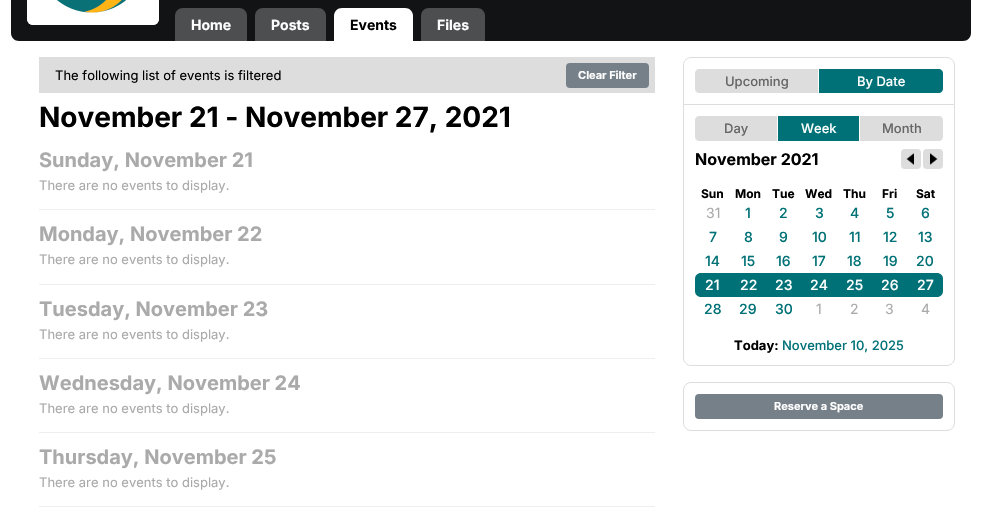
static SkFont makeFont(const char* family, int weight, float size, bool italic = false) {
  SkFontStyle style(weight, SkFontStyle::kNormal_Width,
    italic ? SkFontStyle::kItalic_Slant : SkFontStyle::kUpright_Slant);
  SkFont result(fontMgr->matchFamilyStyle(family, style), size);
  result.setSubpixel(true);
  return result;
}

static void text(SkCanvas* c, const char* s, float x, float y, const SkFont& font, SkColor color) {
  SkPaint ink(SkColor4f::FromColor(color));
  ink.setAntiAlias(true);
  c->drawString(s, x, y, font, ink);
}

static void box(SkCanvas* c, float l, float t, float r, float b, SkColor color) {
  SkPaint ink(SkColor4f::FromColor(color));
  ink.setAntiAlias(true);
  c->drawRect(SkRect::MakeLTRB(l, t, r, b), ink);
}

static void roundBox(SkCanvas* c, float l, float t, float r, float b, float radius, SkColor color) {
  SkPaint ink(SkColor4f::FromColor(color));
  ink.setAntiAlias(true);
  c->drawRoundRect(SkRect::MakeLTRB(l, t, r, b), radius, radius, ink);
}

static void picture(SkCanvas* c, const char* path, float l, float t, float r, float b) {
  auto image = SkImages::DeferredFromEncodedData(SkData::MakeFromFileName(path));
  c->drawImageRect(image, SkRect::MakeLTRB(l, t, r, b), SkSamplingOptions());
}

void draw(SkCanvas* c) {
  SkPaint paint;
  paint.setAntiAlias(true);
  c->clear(0xffffffff);
  box(c, 11, 0, 971, 2, 0xff111315);
  paint.setColor(0xff111315);
  c->drawPath(SkPathBuilder().moveTo(11, 2).lineTo(971, 2).lineTo(971, 33).cubicTo(971, 37.5f, 967.5f, 41, 963, 41).lineTo(19, 41).cubicTo(14.5f, 41, 11, 37.5f, 11, 33).close().detach(), paint);
  roundBox(c, 27, -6, 159, 25, 6, 0xffffffff);
  picture(c, "img_01.png", 57, 0, 126, 13);
  paint.setStyle(SkPaint::kStroke_Style);
  paint.setStrokeWidth(2);
  paint.setColor(0xffffffff);
  c->drawRoundRect(SkRect::MakeLTRB(28, -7, 158, 24), 5, 5, paint);
  paint.setStyle(SkPaint::kFill_Style);
  paint.setColor(0xff4d4e50);
  c->drawPath(SkPathBuilder().moveTo(183, 8).lineTo(239, 8).cubicTo(243.5f, 8, 247, 11.5f, 247, 16).lineTo(247, 41).lineTo(175, 41).lineTo(175, 16).cubicTo(175, 11.5f, 178.5f, 8, 183, 8).close().detach(), paint);
  SkFont face1 = makeFont("Inter", 700, 14);
  text(c, "Home", 191, 30, face1, 0xffffffff);
  c->drawPath(SkPathBuilder().moveTo(263, 8).lineTo(318, 8).cubicTo(322.5f, 8, 326, 11.5f, 326, 16).lineTo(326, 41).lineTo(255, 41).lineTo(255, 16).cubicTo(255, 11.5f, 258.5f, 8, 263, 8).close().detach(), paint);
  text(c, "Posts", 271, 30, face1, 0xffffffff);
  paint.setColor(0xffffffff);
  c->drawPath(SkPathBuilder().moveTo(342, 8).lineTo(405, 8).cubicTo(409.5f, 8, 413, 11.5f, 413, 16).lineTo(413, 41).lineTo(334, 41).lineTo(334, 16).cubicTo(334, 11.5f, 337.5f, 8, 342, 8).close().detach(), paint);
  text(c, "Events", 350, 30, face1, 0xff000000);
  paint.setColor(0xff4d4e50);
  c->drawPath(SkPathBuilder().moveTo(429, 8).lineTo(477, 8).cubicTo(481.5f, 8, 485, 11.5f, 485, 16).lineTo(485, 41).lineTo(421, 41).lineTo(421, 16).cubicTo(421, 11.5f, 424.5f, 8, 429, 8).close().detach(), paint);
  text(c, "Files", 437, 30, face1, 0xffffffff);
  box(c, 39, 57, 655, 93, 0xffdddddd);
  SkFont face2 = makeFont("Inter", 400, 13);
  text(c, "The following list of events is filtered", 55, 80, face2, 0xff000000);
  roundBox(c, 566, 63, 649, 88, 4, 0xff768089);
  SkFont face3 = makeFont("Inter", 700, 11);
  text(c, "Clear Filter", 578, 79, face3, 0xffffffff);
  SkFont face4 = makeFont("Inter", 700, 28);
  text(c, "November 21 - November 27, 2021", 39, 127, face4, 0xff000000);
  SkFont face5 = makeFont("Inter", 700, 20);
  text(c, "Sunday, November 21", 39, 167, face5, 0xffaaaaaa);
  text(c, "There are no events to display.", 39, 190, face2, 0xffaaaaaa);
  box(c, 39, 209, 655, 210, 0xffeeeeee);
  text(c, "Monday, November 22", 39, 241, face5, 0xffaaaaaa);
  text(c, "There are no events to display.", 39, 264, face2, 0xffaaaaaa);
  box(c, 39, 284, 655, 285, 0xffeeeeee);
  text(c, "Tuesday, November 23", 39, 316, face5, 0xffaaaaaa);
  text(c, "There are no events to display.", 39, 339, face2, 0xffaaaaaa);
  box(c, 39, 358, 655, 359, 0xffeeeeee);
  text(c, "Wednesday, November 24", 39, 390, face5, 0xffaaaaaa);
  text(c, "There are no events to display.", 39, 413, face2, 0xffaaaaaa);
  box(c, 39, 432, 655, 433, 0xffeeeeee);
  text(c, "Thursday, November 25", 39, 464, face5, 0xffaaaaaa);
  text(c, "There are no events to display.", 39, 487, face2, 0xffaaaaaa);
  box(c, 39, 506, 655, 507, 0xffeeeeee);
  paint.setColor(0xffdddddd);
  c->drawPath(SkPathBuilder(SkPathFillType::kEvenOdd).moveTo(691, 57).lineTo(947, 57).cubicTo(951, 57, 955, 61, 955, 65).lineTo(955, 104).lineTo(683, 104).lineTo(683, 65).cubicTo(683, 61, 687, 57, 691, 57).close().moveTo(691, 58).lineTo(947, 58).cubicTo(951, 58, 954, 61, 954, 65).lineTo(954, 104).lineTo(684, 104).lineTo(684, 65).cubicTo(684, 61, 687, 58, 691, 58).close().detach(), paint);
  c->drawPath(SkPathBuilder().moveTo(699, 69).lineTo(819, 69).lineTo(819, 93).lineTo(699, 93).cubicTo(697, 93, 695, 91, 695, 89).lineTo(695, 73).cubicTo(695, 71, 697, 69, 699, 69).close().detach(), paint);
  SkFont face6 = makeFont("Inter", 500, 13);
  text(c, "Upcoming", 725, 86, face6, 0xff666666);
  box(c, 818, 69, 819, 93, 0xffffffff);
  paint.setColor(0xff007176);
  c->drawPath(SkPathBuilder().moveTo(819, 69).lineTo(939, 69).cubicTo(941, 69, 943, 71, 943, 73).lineTo(943, 89).cubicTo(943, 91, 941, 93, 939, 93).lineTo(819, 93).close().detach(), paint);
  text(c, "By Date", 857, 86, face6, 0xffffffff);
  paint.setStyle(SkPaint::kStroke_Style);
  paint.setStrokeWidth(1);
  paint.setColor(0xffdddddd);
  c->drawPath(SkPathBuilder().moveTo(683.5f, 104.5f).lineTo(954.5f, 104.5f).lineTo(954.5f, 358).cubicTo(954.5f, 362, 951, 365.5f, 947, 365.5f).lineTo(691, 365.5f).cubicTo(687, 365.5f, 683.5f, 362, 683.5f, 358).close().detach(), paint);
  paint.setStyle(SkPaint::kFill_Style);
  c->drawPath(SkPathBuilder().moveTo(699, 116).lineTo(778, 116).lineTo(778, 141).lineTo(699, 141).cubicTo(697, 141, 695, 139, 695, 137).lineTo(695, 120).cubicTo(695, 118, 697, 116, 699, 116).close().detach(), paint);
  text(c, "Day", 724, 133, face6, 0xff666666);
  box(c, 777, 116, 778, 141, 0xffffffff);
  box(c, 778, 116, 859, 141, 0xff007176);
  text(c, "Week", 801, 133, face6, 0xffffffff);
  c->drawPath(SkPathBuilder().moveTo(860, 116).lineTo(939, 116).cubicTo(941, 116, 943, 118, 943, 120).lineTo(943, 137).cubicTo(943, 139, 941, 141, 939, 141).lineTo(860, 141).close().detach(), paint);
  text(c, "Month", 882, 133, face6, 0xff666666);
  SkFont face7 = makeFont("Inter", 700, 16);
  text(c, "November 2021", 695, 165, face7, 0xff000000);
  roundBox(c, 901, 149, 921, 169, 4, 0xffdddddd);
  picture(c, "img_02.png", 906, 153, 914, 165);
  roundBox(c, 923, 149, 943, 169, 4, 0xffdddddd);
  picture(c, "img_03.png", 930, 153, 938, 165);
  SkFont face8 = makeFont("Inter", 700, 12);
  text(c, "Sun", 701, 198, face8, 0xff000000);
  text(c, "Mon", 735, 198, face8, 0xff000000);
  text(c, "Tue", 772, 198, face8, 0xff000000);
  text(c, "Wed", 805, 198, face8, 0xff000000);
  text(c, "Thu", 843, 198, face8, 0xff000000);
  text(c, "Fri", 882, 198, face8, 0xff000000);
  text(c, "Sat", 916, 198, face8, 0xff000000);
  SkFont face9 = makeFont("Inter", 400, 14);
  text(c, "31", 706, 218, face9, 0xffaaaaaa);
  SkFont face10 = makeFont("Inter", 500, 14);
  text(c, "1", 745, 218, face10, 0xff007176);
  text(c, "2", 779, 218, face10, 0xff007176);
  text(c, "3", 815, 218, face10, 0xff007176);
  text(c, "4", 850, 218, face10, 0xff007176);
  text(c, "5", 886, 218, face10, 0xff007176);
  text(c, "6", 921, 218, face10, 0xff007176);
  text(c, "7", 709, 242, face10, 0xff007176);
  text(c, "8", 744, 242, face10, 0xff007176);
  text(c, "9", 779, 242, face10, 0xff007176);
  text(c, "10", 812, 242, face10, 0xff007176);
  text(c, "11", 849, 242, face10, 0xff007176);
  text(c, "12", 883, 242, face10, 0xff007176);
  text(c, "13", 918, 242, face10, 0xff007176);
  text(c, "14", 705, 266, face10, 0xff007176);
  text(c, "15", 741, 266, face10, 0xff007176);
  text(c, "16", 776, 266, face10, 0xff007176);
  text(c, "17", 812, 266, face10, 0xff007176);
  text(c, "18", 847, 266, face10, 0xff007176);
  text(c, "19", 883, 266, face10, 0xff007176);
  text(c, "20", 916, 266, face10, 0xff007176);
  paint.setColor(0xff007176);
  c->drawPath(SkPathBuilder().moveTo(701, 273).lineTo(730, 273).lineTo(730, 297).lineTo(701, 297).cubicTo(697.5f, 297, 695, 294.5f, 695, 291).lineTo(695, 279).cubicTo(695, 275.5f, 697.5f, 273, 701, 273).close().detach(), paint);
  text(c, "21", 705, 290, face10, 0xffffffff);
  box(c, 730, 273, 908, 297, 0xff007176);
  text(c, "22", 740, 290, face10, 0xffffffff);
  text(c, "23", 775, 290, face10, 0xffffffff);
  text(c, "24", 810, 290, face10, 0xffffffff);
  text(c, "25", 846, 290, face10, 0xffffffff);
  text(c, "26", 881, 290, face10, 0xffffffff);
  c->drawPath(SkPathBuilder().moveTo(908, 273).lineTo(937, 273).cubicTo(940.5f, 273, 943, 275.5f, 943, 279).lineTo(943, 291).cubicTo(943, 294.5f, 940.5f, 297, 937, 297).lineTo(908, 297).close().detach(), paint);
  text(c, "27", 917, 290, face10, 0xffffffff);
  text(c, "28", 704, 314, face10, 0xff007176);
  text(c, "29", 739, 314, face10, 0xff007176);
  text(c, "30", 775, 314, face10, 0xff007176);
  text(c, "1", 816, 314, face9, 0xffaaaaaa);
  text(c, "2", 850, 314, face9, 0xffaaaaaa);
  text(c, "3", 885, 314, face9, 0xffaaaaaa);
  text(c, "4", 921, 314, face9, 0xffaaaaaa);
  SkFont face11 = makeFont("Inter", 700, 13);
  text(c, "Today:", 734, 350, face11, 0xff000000);
  text(c, "November 10, 2025", 782, 350, face6, 0xff007176);
  paint.setStyle(SkPaint::kStroke_Style);
  paint.setColor(0xffdddddd);
  c->drawRoundRect(SkRect::MakeLTRB(683.5f, 382.5f, 954.5f, 430.5f), 7.5f, 7.5f, paint);
  roundBox(c, 695, 394, 943, 419, 4, 0xff768089);
  text(c, "Reserve a Space", 774, 410, face3, 0xffffffff);
}
